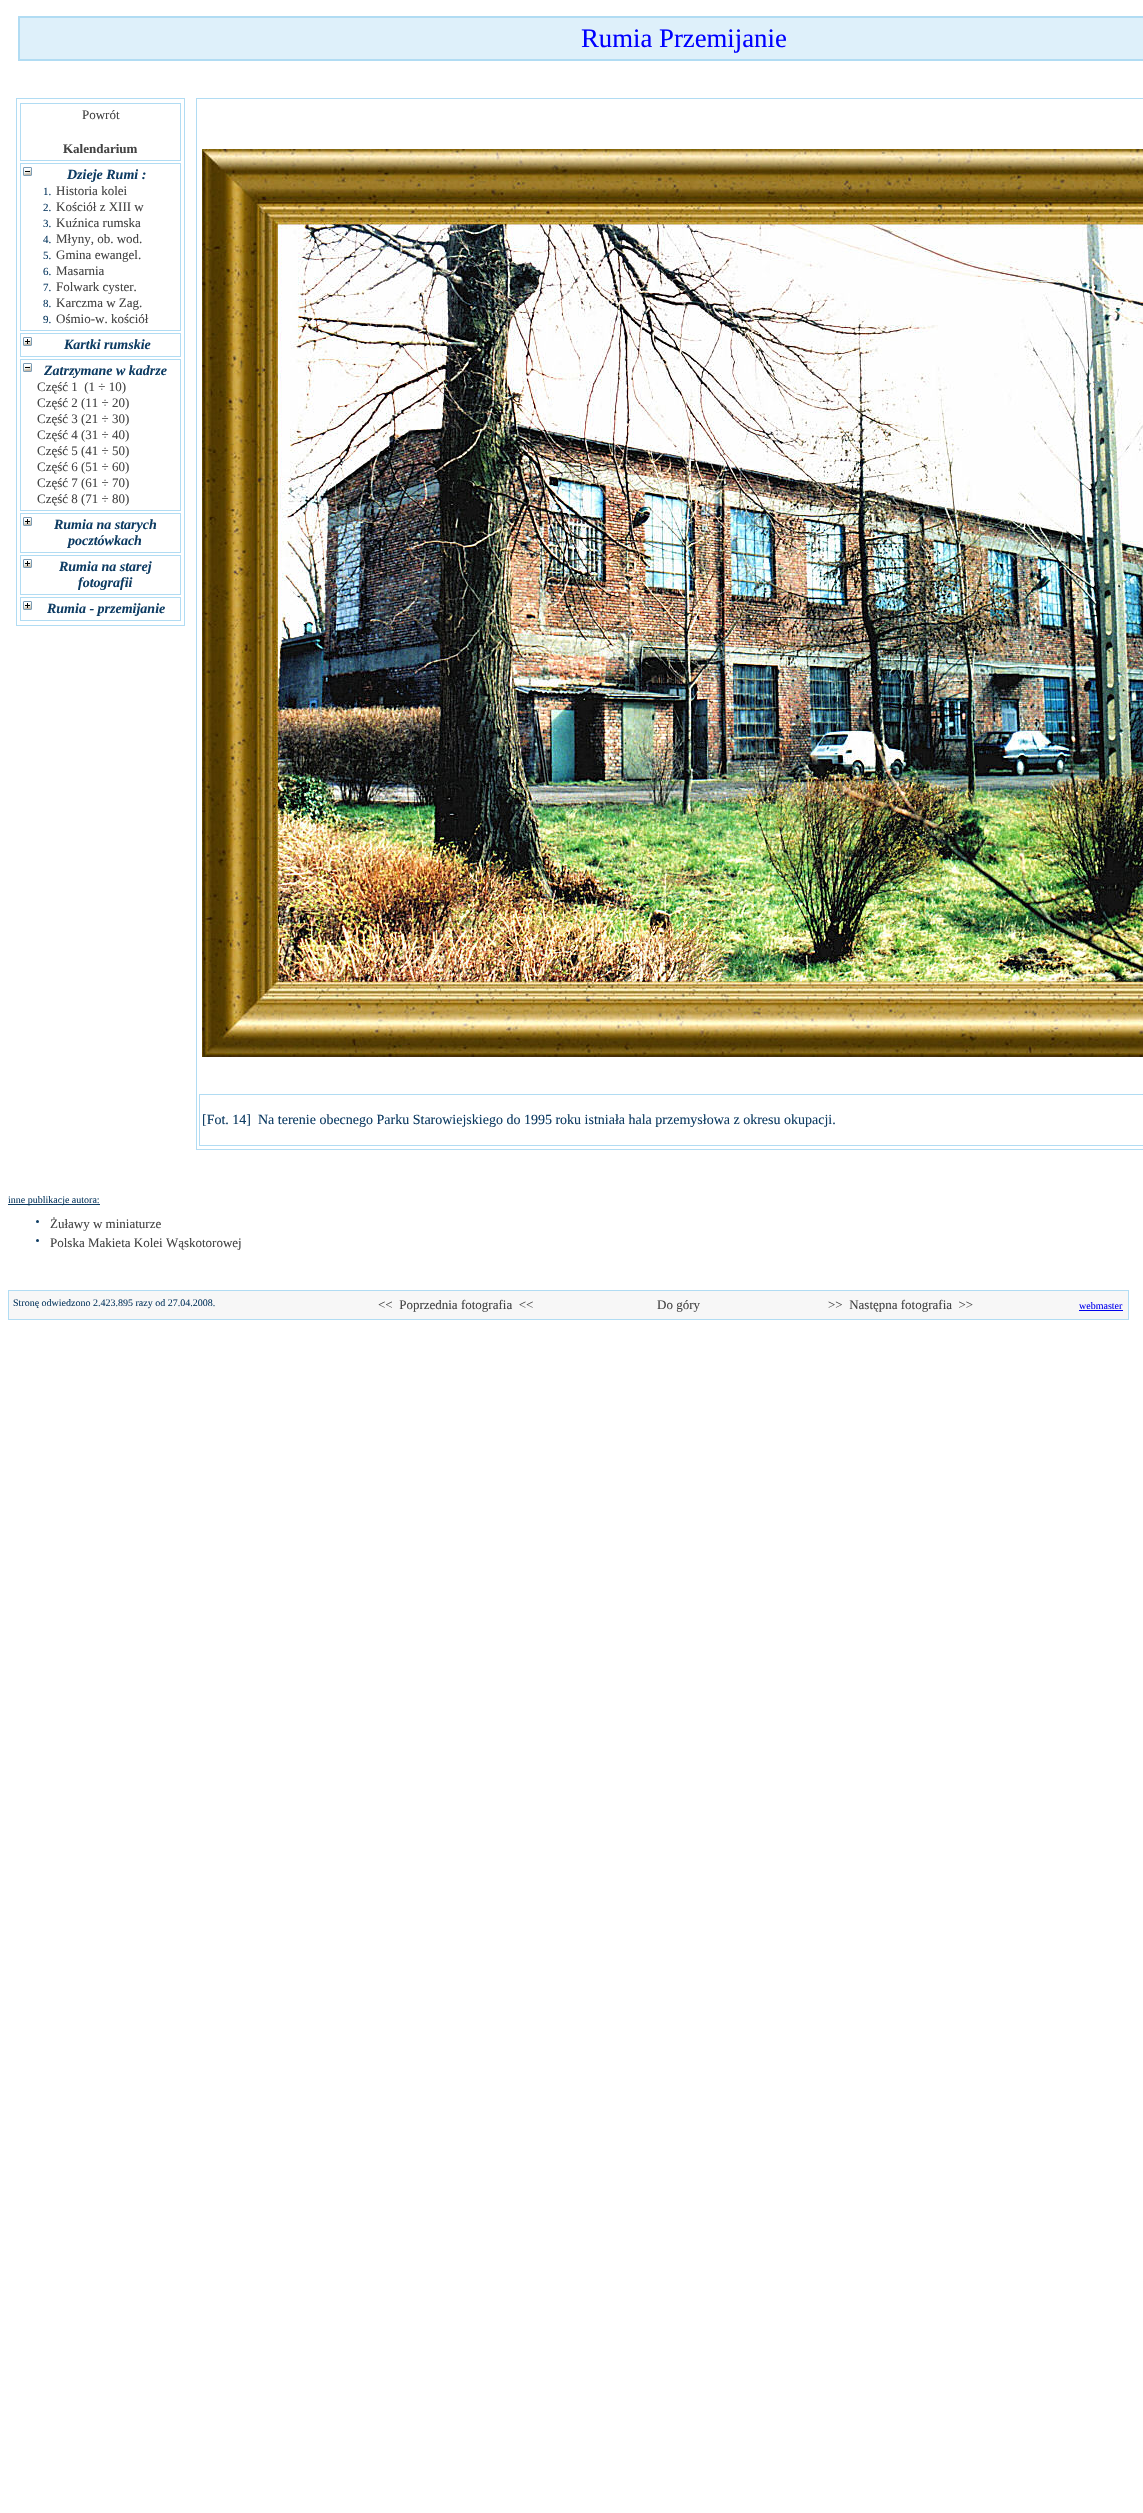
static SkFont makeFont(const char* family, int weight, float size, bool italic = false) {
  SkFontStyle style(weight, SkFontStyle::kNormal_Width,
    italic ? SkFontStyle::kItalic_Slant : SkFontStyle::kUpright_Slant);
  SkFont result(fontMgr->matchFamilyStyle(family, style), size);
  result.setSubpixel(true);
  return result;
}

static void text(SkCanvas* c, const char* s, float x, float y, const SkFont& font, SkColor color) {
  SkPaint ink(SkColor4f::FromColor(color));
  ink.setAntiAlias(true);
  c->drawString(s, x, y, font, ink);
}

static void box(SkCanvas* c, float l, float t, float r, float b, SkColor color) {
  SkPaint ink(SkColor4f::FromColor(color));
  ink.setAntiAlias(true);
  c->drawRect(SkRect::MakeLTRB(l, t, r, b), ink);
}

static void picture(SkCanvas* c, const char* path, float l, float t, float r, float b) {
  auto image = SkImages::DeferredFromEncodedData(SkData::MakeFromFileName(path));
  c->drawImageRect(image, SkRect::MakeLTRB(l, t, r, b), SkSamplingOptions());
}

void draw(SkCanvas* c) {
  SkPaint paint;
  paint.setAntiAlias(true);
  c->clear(0xffffffff);
  paint.setColor(0xffdef0fa);
  c->drawRect(SkRect::MakeLTRB(19, 17, 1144, 60), paint);
  paint.setStyle(SkPaint::kStroke_Style);
  paint.setStrokeWidth(2);
  paint.setColor(0xffb1dcf3);
  c->drawRect(SkRect::MakeLTRB(19, 17, 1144, 60), paint);
  SkFont face1 = makeFont("Liberation Serif", 400, 26.75f);
  text(c, "Rumia Przemijanie", 581, 47, face1, 0xff0000ff);
  paint.setStrokeWidth(1);
  c->drawRect(SkRect::MakeLTRB(16.5f, 98.5f, 184.5f, 625.5f), paint);
  c->drawRect(SkRect::MakeLTRB(20.5f, 103.5f, 180.5f, 160.5f), paint);
  SkFont face2 = makeFont("Liberation Serif", 400, 13);
  text(c, "Powrót", 82, 119, face2, 0xff444444);
  SkFont face3 = makeFont("Liberation Serif", 700, 13);
  text(c, "Kalendarium", 63, 153, face3, 0xff444444);
  c->drawRect(SkRect::MakeLTRB(20.5f, 163.5f, 180.5f, 330.5f), paint);
  picture(c, "img_01.png", 23, 167, 32, 176);
  SkFont face4 = makeFont("Liberation Serif", 700, 14, true);
  text(c, "Dzieje Rumi :", 67, 179, face4, 0xff0e3c63);
  SkFont face5 = makeFont("Liberation Serif", 400, 11);
  text(c, "1.", 43, 195, face5, 0xff0e3c63);
  text(c, "Historia kolei", 56, 195, face2, 0xff444444);
  text(c, "2.", 43, 211, face5, 0xff0e3c63);
  text(c, "Kościół z XIII w", 56, 211, face2, 0xff444444);
  text(c, "3.", 43, 227, face5, 0xff0e3c63);
  text(c, "Kuźnica rumska", 56, 227, face2, 0xff444444);
  text(c, "4.", 43, 243, face5, 0xff0e3c63);
  text(c, "Młyny, ob. wod.", 56, 243, face2, 0xff444444);
  text(c, "5.", 43, 259, face5, 0xff0e3c63);
  text(c, "Gmina ewangel.", 56, 259, face2, 0xff444444);
  text(c, "6.", 43, 275, face5, 0xff0e3c63);
  text(c, "Masarnia", 56, 275, face2, 0xff444444);
  text(c, "7.", 43, 291, face5, 0xff0e3c63);
  text(c, "Folwark cyster.", 56, 291, face2, 0xff444444);
  text(c, "8.", 43, 307, face5, 0xff0e3c63);
  text(c, "Karczma w Zag.", 56, 307, face2, 0xff444444);
  text(c, "9.", 43, 323, face5, 0xff0e3c63);
  text(c, "Ośmio-w. kościół", 56, 323, face2, 0xff444444);
  c->drawRect(SkRect::MakeLTRB(20.5f, 333.5f, 180.5f, 356.5f), paint);
  picture(c, "img_02.png", 23, 337, 32, 346);
  text(c, "Kartki rumskie", 64, 349, face4, 0xff0e3c63);
  c->drawRect(SkRect::MakeLTRB(20.5f, 359.5f, 180.5f, 510.5f), paint);
  picture(c, "img_01.png", 23, 363, 32, 372);
  text(c, "Zatrzymane w kadrze", 44, 375, face4, 0xff0e3c63);
  text(c, "Część 1  (1 ÷ 10)", 37, 391, face2, 0xff444444);
  text(c, "Część 2 (11 ÷ 20)", 37, 407, face2, 0xff444444);
  text(c, "Część 3 (21 ÷ 30)", 37, 423, face2, 0xff444444);
  text(c, "Część 4 (31 ÷ 40)", 37, 439, face2, 0xff444444);
  text(c, "Część 5 (41 ÷ 50)", 37, 455, face2, 0xff444444);
  text(c, "Część 6 (51 ÷ 60)", 37, 471, face2, 0xff444444);
  text(c, "Część 7 (61 ÷ 70)", 37, 487, face2, 0xff444444);
  text(c, "Część 8 (71 ÷ 80)", 37, 503, face2, 0xff444444);
  c->drawRect(SkRect::MakeLTRB(20.5f, 513.5f, 180.5f, 552.5f), paint);
  picture(c, "img_02.png", 23, 517, 32, 526);
  text(c, "Rumia na starych", 54, 529, face4, 0xff0e3c63);
  text(c, "pocztówkach", 68, 545, face4, 0xff0e3c63);
  c->drawRect(SkRect::MakeLTRB(20.5f, 555.5f, 180.5f, 594.5f), paint);
  picture(c, "img_02.png", 23, 559, 32, 568);
  text(c, "Rumia na starej", 59, 571, face4, 0xff0e3c63);
  text(c, "fotografii", 78, 587, face4, 0xff0e3c63);
  c->drawRect(SkRect::MakeLTRB(20.5f, 597.5f, 180.5f, 620.5f), paint);
  picture(c, "img_02.png", 23, 601, 32, 610);
  text(c, "Rumia - przemijanie", 47, 613, face4, 0xff0e3c63);
  c->drawRect(SkRect::MakeLTRB(196.5f, 98.5f, 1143.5f, 1149.5f), paint);
  picture(c, "img_03.png", 202, 149, 1143, 1057);
  c->drawRect(SkRect::MakeLTRB(199.5f, 1094.5f, 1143.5f, 1145.5f), paint);
  SkFont face6 = makeFont("Liberation Serif", 400, 14);
  text(c, "[Fot. 14]  Na terenie obecnego Parku Starowiejskiego do 1995 roku istniała hala przemysłowa z okresu okupacji.", 202, 1124, face6, 0xff0e3c63);
  box(c, 8, 1204, 100, 1205, 0xff0e3c63);
  SkFont face7 = makeFont("Liberation Serif", 400, 10);
  text(c, "inne publikacje autora:", 8, 1203, face7, 0xff0e3c63);
  paint.setStyle(SkPaint::kFill_Style);
  paint.setColor(0xff0e3c63);
  c->drawCircle(37.5f, 1221.5f, 1.5f, paint);
  text(c, "Żuławy w miniaturze", 50, 1228, face2, 0xff444444);
  c->drawCircle(37.5f, 1240.5f, 1.5f, paint);
  text(c, "Polska Makieta Kolei Wąskotorowej", 50, 1247, face2, 0xff444444);
  paint.setColor(0xfff7f7f7);
  c->drawRect(SkRect::MakeLTRB(8.5f, 1290.5f, 1128.5f, 1319.5f), paint);
  paint.setStyle(SkPaint::kStroke_Style);
  paint.setColor(0xffb1dcf3);
  c->drawRect(SkRect::MakeLTRB(8.5f, 1290.5f, 1128.5f, 1319.5f), paint);
  text(c, "Stronę odwiedzono 2.423.895 razy od 27.04.2008.", 13, 1306, face7, 0xff0e3c63);
  text(c, "<<  Poprzednia fotografia  <<", 378, 1309, face2, 0xff444444);
  text(c, "Do góry", 657, 1309, face2, 0xff444444);
  text(c, ">>  Następna fotografia  >>", 828, 1309, face2, 0xff444444);
  text(c, "webmaster", 1079, 1309, face7, 0xff0000ee);
  box(c, 1079, 1310, 1123, 1311, 0xff0000ee);
}
